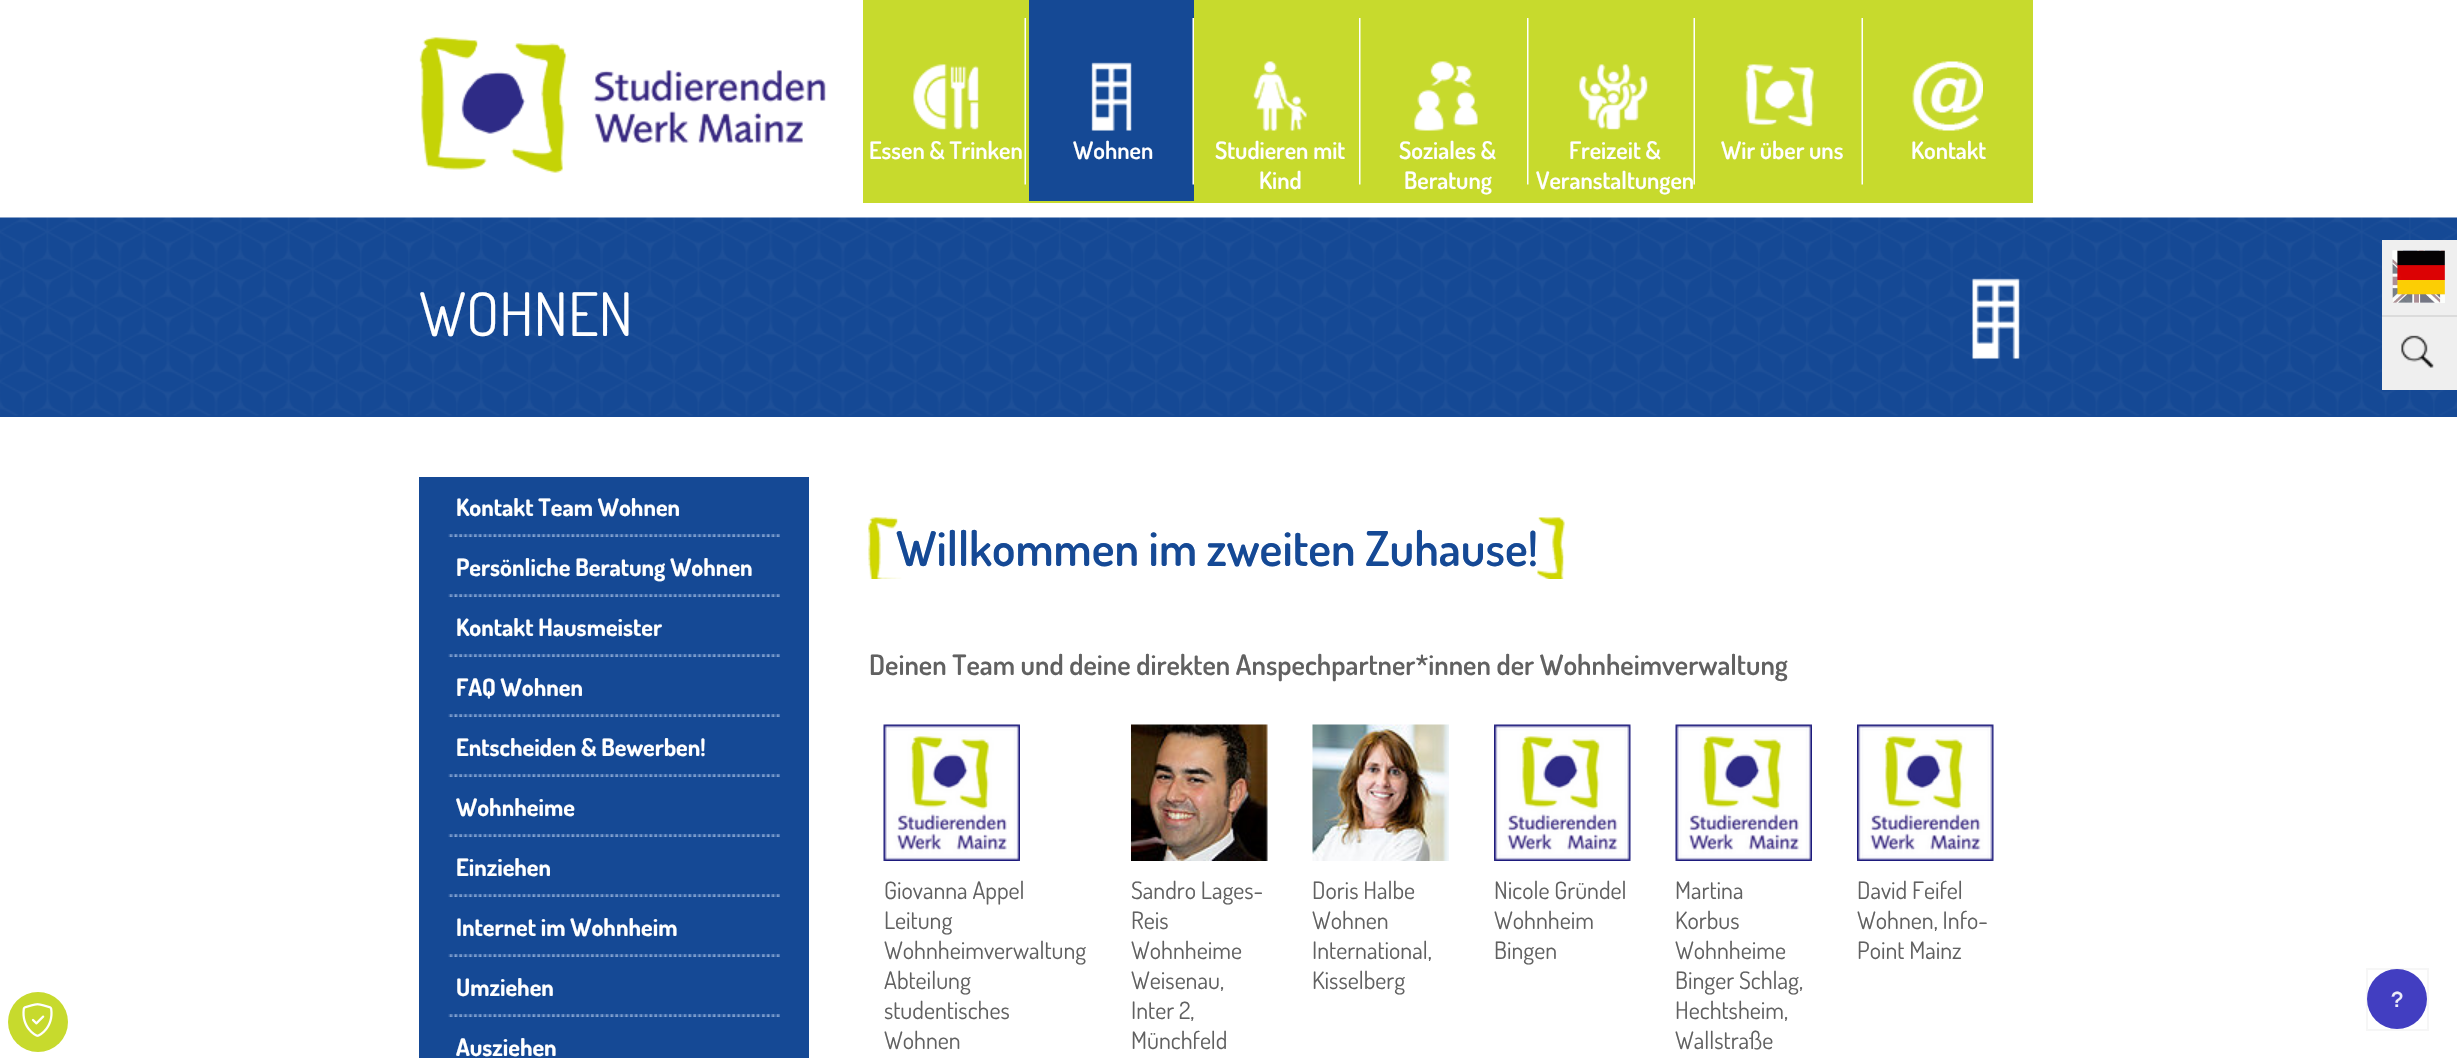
static SkFont makeFont(const char* family, int weight, float size, bool italic = false) {
  SkFontStyle style(weight, SkFontStyle::kNormal_Width,
    italic ? SkFontStyle::kItalic_Slant : SkFontStyle::kUpright_Slant);
  SkFont result(fontMgr->matchFamilyStyle(family, style), size);
  result.setSubpixel(true);
  return result;
}

static void text(SkCanvas* c, const char* s, float x, float y, const SkFont& font, SkColor color) {
  SkPaint ink(SkColor4f::FromColor(color));
  ink.setAntiAlias(true);
  c->drawString(s, x, y, font, ink);
}

static void box(SkCanvas* c, float l, float t, float r, float b, SkColor color) {
  SkPaint ink(SkColor4f::FromColor(color));
  ink.setAntiAlias(true);
  c->drawRect(SkRect::MakeLTRB(l, t, r, b), ink);
}

static void picture(SkCanvas* c, const char* path, float l, float t, float r, float b) {
  auto image = SkImages::DeferredFromEncodedData(SkData::MakeFromFileName(path));
  c->drawImageRect(image, SkRect::MakeLTRB(l, t, r, b), SkSamplingOptions());
}

void draw(SkCanvas* c) {
  SkPaint paint;
  paint.setAntiAlias(true);
  c->clear(0xffffffff);
  paint.setColor(0xffc7da2d);
  c->drawCircle(38, 1022, 30, paint);
  picture(c, "img_01.png", 22, 1003, 53, 1037);
  picture(c, "img_02.png", 419, 37, 826, 173);
  box(c, 863, 0, 2033, 203, 0xffc7da2d);
  picture(c, "img_03.png", 913, 64, 979, 130);
  picture(c, "img_04.png", 1024, 18, 1026, 185);
  SkFont face1 = makeFont("Dosis", 600, 24);
  text(c, "Essen & Trinken", 869, 159, face1, 0xffffffff);
  box(c, 1029, 0, 1194, 201, 0xff154995);
  picture(c, "img_05.png", 1091, 62, 1132, 131);
  picture(c, "img_06.png", 1192, 18, 1194, 185);
  text(c, "Wohnen", 1073, 159, face1, 0xffffffff);
  picture(c, "img_07.png", 1253, 61, 1307, 131);
  picture(c, "img_08.png", 1359, 18, 1361, 185);
  text(c, "Studieren mit", 1215, 159, face1, 0xffffffff);
  text(c, "Kind", 1259, 189, face1, 0xffffffff);
  picture(c, "img_09.png", 1414, 61, 1478, 131);
  picture(c, "img_08.png", 1527, 18, 1529, 185);
  text(c, "Soziales &", 1399, 159, face1, 0xffffffff);
  text(c, "Beratung", 1404, 189, face1, 0xffffffff);
  picture(c, "img_10.png", 1579, 64, 1648, 130);
  picture(c, "img_04.png", 1693, 18, 1695, 185);
  text(c, "Freizeit &", 1569, 159, face1, 0xffffffff);
  text(c, "Veranstaltungen", 1536, 189, face1, 0xffffffff);
  picture(c, "img_11.png", 1745, 64, 1814, 127);
  picture(c, "img_04.png", 1861, 18, 1863, 185);
  text(c, "Wir über uns", 1721, 159, face1, 0xffffffff);
  picture(c, "img_12.png", 1912, 61, 1983, 131);
  text(c, "Kontakt", 1911, 159, face1, 0xffffffff);
  picture(c, "img_13.png", 0, 217, 2457, 417);
  picture(c, "img_14.png", 1972, 278, 2020, 359);
  SkFont face2 = makeFont("Dosis", 400, 60);
  text(c, "WOHNEN", 419, 336, face2, 0xffffffff);
  box(c, 2382, 240, 2457, 390, 0xffefefef);
  box(c, 2382, 315, 2457, 317, 0xffdbdbdb);
  picture(c, "img_15.png", 2392, 250, 2445, 303);
  picture(c, "img_16.png", 2392, 250, 2445, 303);
  picture(c, "img_17.png", 2401, 335, 2434, 368);
  box(c, 419, 477, 809, 1058, 0xff154995);
  picture(c, "img_18.png", 448, 534, 780, 537);
  SkFont face3 = makeFont("Dosis", 700, 24);
  text(c, "Kontakt Team Wohnen", 456, 516, face3, 0xffffffff);
  picture(c, "img_18.png", 448, 594, 780, 597);
  text(c, "Persönliche Beratung Wohnen", 456, 576, face3, 0xffffffff);
  picture(c, "img_18.png", 448, 654, 780, 657);
  text(c, "Kontakt Hausmeister", 456, 636, face3, 0xffffffff);
  picture(c, "img_18.png", 448, 714, 780, 717);
  text(c, "FAQ Wohnen", 456, 696, face3, 0xffffffff);
  picture(c, "img_18.png", 448, 774, 780, 777);
  text(c, "Entscheiden & Bewerben!", 456, 756, face3, 0xffffffff);
  picture(c, "img_18.png", 448, 834, 780, 837);
  text(c, "Wohnheime", 456, 816, face3, 0xffffffff);
  picture(c, "img_18.png", 448, 894, 780, 897);
  text(c, "Einziehen", 456, 876, face3, 0xffffffff);
  picture(c, "img_18.png", 448, 954, 780, 957);
  text(c, "Internet im Wohnheim", 456, 936, face3, 0xffffffff);
  picture(c, "img_18.png", 448, 1014, 780, 1017);
  text(c, "Umziehen", 456, 996, face3, 0xffffffff);
  text(c, "Ausziehen", 456, 1056, face3, 0xffffffff);
  picture(c, "img_19.png", 868, 517, 1565, 579);
  SkFont face4 = makeFont("Dosis", 600, 48);
  text(c, "Willkommen im zweiten Zuhause!", 896, 566, face4, 0xff154995);
  SkFont face5 = makeFont("Dosis", 600, 28.1f);
  text(c, "Deinen Team und deine direkten Anspechpartner*innen der Wohnheimverwaltung", 869, 675, face5, 0xff616161);
  picture(c, "img_20.png", 883, 724, 1020, 861);
  SkFont face6 = makeFont("Dosis", 400, 24);
  text(c, "Giovanna Appel", 884, 899, face6, 0xff616161);
  text(c, "Leitung", 884, 929, face6, 0xff616161);
  text(c, "Wohnheimverwaltung", 884, 959, face6, 0xff616161);
  text(c, "Abteilung", 884, 989, face6, 0xff616161);
  text(c, "studentisches", 884, 1019, face6, 0xff616161);
  text(c, "Wohnen", 884, 1049, face6, 0xff616161);
  picture(c, "img_21.png", 1131, 724, 1268, 861);
  text(c, "Sandro Lages-", 1131, 899, face6, 0xff616161);
  text(c, "Reis", 1131, 929, face6, 0xff616161);
  text(c, "Wohnheime", 1131, 959, face6, 0xff616161);
  text(c, "Weisenau,", 1131, 989, face6, 0xff616161);
  text(c, "Inter 2,", 1131, 1019, face6, 0xff616161);
  text(c, "Münchfeld", 1131, 1049, face6, 0xff616161);
  picture(c, "img_22.png", 1312, 724, 1449, 861);
  text(c, "Doris Halbe", 1312, 899, face6, 0xff616161);
  text(c, "Wohnen", 1312, 929, face6, 0xff616161);
  text(c, "International,", 1312, 959, face6, 0xff616161);
  text(c, "Kisselberg", 1312, 989, face6, 0xff616161);
  picture(c, "img_23.png", 1494, 724, 1631, 861);
  text(c, "Nicole Gründel", 1494, 899, face6, 0xff616161);
  text(c, "Wohnheim", 1494, 929, face6, 0xff616161);
  text(c, "Bingen", 1494, 959, face6, 0xff616161);
  picture(c, "img_20.png", 1675, 724, 1812, 861);
  text(c, "Martina", 1675, 899, face6, 0xff616161);
  text(c, "Korbus", 1675, 929, face6, 0xff616161);
  text(c, "Wohnheime", 1675, 959, face6, 0xff616161);
  text(c, "Binger Schlag,", 1675, 989, face6, 0xff616161);
  text(c, "Hechtsheim,", 1675, 1019, face6, 0xff616161);
  text(c, "Wallstraße", 1675, 1049, face6, 0xff616161);
  picture(c, "img_24.png", 1857, 724, 1994, 861);
  text(c, "David Feifel", 1857, 899, face6, 0xff616161);
  text(c, "Wohnen, Info-", 1857, 929, face6, 0xff616161);
  text(c, "Point Mainz", 1857, 959, face6, 0xff616161);
  paint.setStyle(SkPaint::kStroke_Style);
  paint.setStrokeWidth(2);
  paint.setColor(0x0a161a1e);
  c->drawRect(SkRect::MakeLTRB(2367, 969, 2428, 1030), paint);
  paint.setStyle(SkPaint::kFill_Style);
  paint.setColor(0xff423ec1);
  c->drawCircle(2397, 999, 30, paint);
  SkFont face7 = makeFont("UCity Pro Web", 600, 21);
  text(c, "?", 2391, 1007, face7, 0xffececf9);
}
